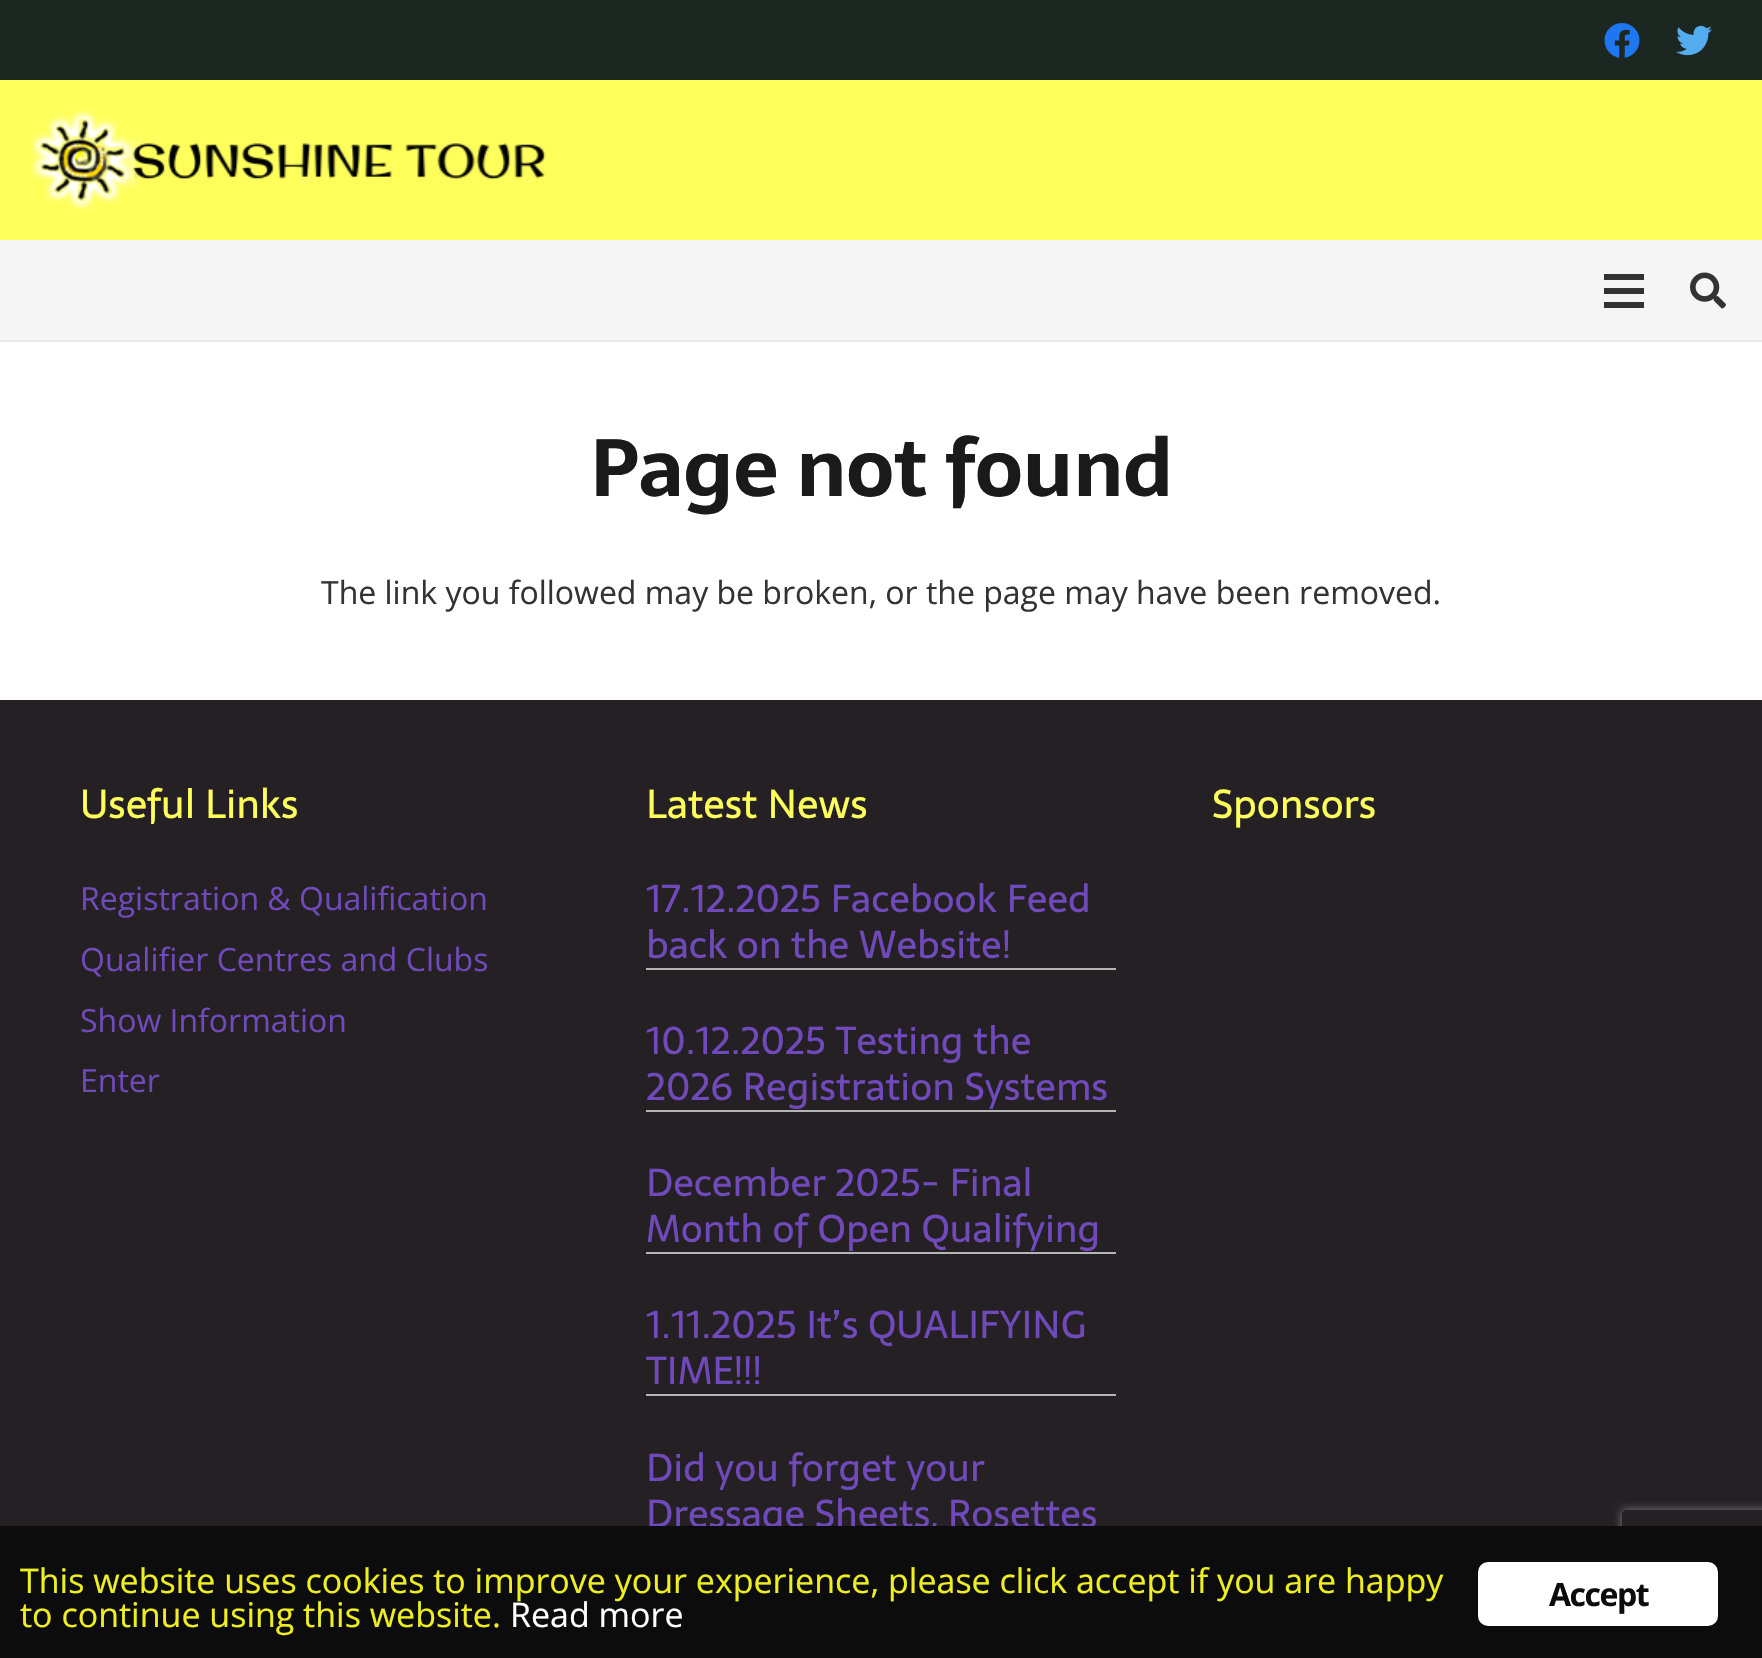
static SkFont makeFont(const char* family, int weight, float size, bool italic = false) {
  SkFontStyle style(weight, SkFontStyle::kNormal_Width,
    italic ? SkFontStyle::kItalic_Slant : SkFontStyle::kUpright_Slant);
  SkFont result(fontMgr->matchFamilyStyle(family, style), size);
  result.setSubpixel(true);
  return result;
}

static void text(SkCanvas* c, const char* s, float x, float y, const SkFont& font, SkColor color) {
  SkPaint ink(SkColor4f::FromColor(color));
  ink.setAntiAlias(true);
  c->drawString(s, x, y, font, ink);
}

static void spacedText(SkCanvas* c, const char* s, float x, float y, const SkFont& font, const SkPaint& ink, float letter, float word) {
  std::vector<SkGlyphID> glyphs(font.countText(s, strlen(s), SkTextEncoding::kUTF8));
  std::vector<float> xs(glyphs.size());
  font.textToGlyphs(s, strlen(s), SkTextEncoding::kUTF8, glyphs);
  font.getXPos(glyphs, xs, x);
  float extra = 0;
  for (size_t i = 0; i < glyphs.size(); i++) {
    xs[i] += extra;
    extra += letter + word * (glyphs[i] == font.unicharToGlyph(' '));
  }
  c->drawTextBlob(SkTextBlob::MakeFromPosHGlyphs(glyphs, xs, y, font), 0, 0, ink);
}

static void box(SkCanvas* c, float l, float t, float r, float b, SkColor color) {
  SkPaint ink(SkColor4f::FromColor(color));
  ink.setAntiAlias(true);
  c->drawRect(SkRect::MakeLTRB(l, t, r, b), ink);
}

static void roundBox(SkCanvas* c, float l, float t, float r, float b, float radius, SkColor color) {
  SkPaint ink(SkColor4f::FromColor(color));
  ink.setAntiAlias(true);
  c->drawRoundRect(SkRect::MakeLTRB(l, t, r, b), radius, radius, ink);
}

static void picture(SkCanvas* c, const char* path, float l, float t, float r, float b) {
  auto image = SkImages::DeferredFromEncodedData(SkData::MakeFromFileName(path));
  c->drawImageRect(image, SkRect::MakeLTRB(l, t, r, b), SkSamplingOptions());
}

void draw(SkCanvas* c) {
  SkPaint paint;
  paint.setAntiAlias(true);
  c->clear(0xffffffff);
  box(c, 0, 0, 1762, 80, 0xff1c2721);
  picture(c, "img_01.png", 1604, 23, 1640, 58);
  picture(c, "img_02.png", 1676, 25, 1712, 56);
  box(c, 0, 80, 1762, 240, 0xfffeff5b);
  picture(c, "img_03.png", 32, 110, 546, 210);
  box(c, 0, 340, 1762, 342, 0xffebebeb);
  box(c, 0, 240, 1762, 340, 0xfff5f5f5);
  box(c, 1604, 288, 1644, 294, 0xff333333);
  box(c, 1604, 274, 1644, 280, 0xff333333);
  box(c, 1604, 302, 1644, 308, 0xff333333);
  picture(c, "img_04.png", 1690, 272, 1726, 309);
  SkFont face1 = makeFont("Sarala", 700, 80);
  text(c, "Page not found", 590, 496, face1, 0xff1a1a1a);
  SkFont face2 = makeFont("Open Sans", 400, 32);
  text(c, "The link you followed may be broken, or the page may have been removed.", 321, 604, face2, 0xff333333);
  box(c, 0, 700, 1762, 1526, 0xff242024);
  SkFont face3 = makeFont("Sarala", 400, 40);
  text(c, "Useful Links", 80, 818, face3, 0xfffeff5b);
  text(c, "Registration & Qualification", 80, 910, face2, 0xff7049ba);
  text(c, "Qualifier Centres and Clubs", 80, 971, face2, 0xff7049ba);
  text(c, "Show Information", 80, 1032, face2, 0xff7049ba);
  text(c, "Enter", 80, 1092, face2, 0xff7049ba);
  text(c, "Latest News", 646, 818, face3, 0xfffeff5b);
  box(c, 646, 968, 1116, 970, 0xffb5b5b5);
  SkFont face4 = makeFont("Sarala", 400, 38.4f);
  text(c, "17.12.2025 Facebook Feed", 646, 912, face4, 0xff7049ba);
  text(c, "back on the Website!", 646, 958, face4, 0xff7049ba);
  box(c, 646, 1110, 1116, 1112, 0xffb5b5b5);
  text(c, "10.12.2025 Testing the", 646, 1054, face4, 0xff7049ba);
  text(c, "2026 Registration Systems", 646, 1100, face4, 0xff7049ba);
  box(c, 646, 1252, 1116, 1254, 0xffb5b5b5);
  text(c, "December 2025- Final", 646, 1196, face4, 0xff7049ba);
  text(c, "Month of Open Qualifying", 646, 1242, face4, 0xff7049ba);
  box(c, 646, 1394, 1116, 1396, 0xffb5b5b5);
  text(c, "1.11.2025 It’s QUALIFYING", 646, 1338, face4, 0xff7049ba);
  text(c, "TIME!!!", 646, 1384, face4, 0xff7049ba);
  text(c, "Did you forget your", 646, 1481, face4, 0xff7049ba);
  text(c, "Dressage Sheets, Rosettes", 646, 1527, face4, 0xff7049ba);
  text(c, "Sponsors", 1212, 818, face3, 0xfffeff5b);
  c->save();
  c->clipPath(SkPathBuilder(SkPathFillType::kEvenOdd).moveTo(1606, 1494).lineTo(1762, 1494).lineTo(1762, 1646).lineTo(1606, 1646).close().moveTo(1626, 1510).lineTo(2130, 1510).cubicTo(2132, 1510, 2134, 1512, 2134, 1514).lineTo(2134, 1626).cubicTo(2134, 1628, 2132, 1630, 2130, 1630).lineTo(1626, 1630).cubicTo(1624, 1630, 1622, 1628, 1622, 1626).lineTo(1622, 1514).cubicTo(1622, 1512, 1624, 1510, 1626, 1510).close().detach(), true);
  paint.setColor(0xff808080);
  paint.setMaskFilter(SkMaskFilter::MakeBlur(kNormal_SkBlurStyle, 5));
  c->drawRoundRect(SkRect::MakeLTRB(1622, 1510, 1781, 1630), 4, 4, paint);
  paint.setMaskFilter(nullptr);
  c->restore();
  box(c, 0, 1526, 1762, 1658, 0xff0c0c0c);
  SkFont face5 = makeFont("Open Sans", 400, 34);
  text(c, "This website uses cookies to improve your experience, please click accept if you are happy", 20, 1593, face5, 0xffeeee22);
  text(c, "to continue using this website.", 20, 1627, face5, 0xffeeee22);
  text(c, "Read more", 510, 1627, face5, 0xffffffff);
  roundBox(c, 1478, 1562, 1718, 1626, 10, 0xffffffff);
  SkFont face6 = makeFont("Open Sans", 700, 32);
  paint.setColor(0xff0c0c0c);
  spacedText(c, "Accept", 1549, 1606, face6, paint, -1.5f, 0);
}
